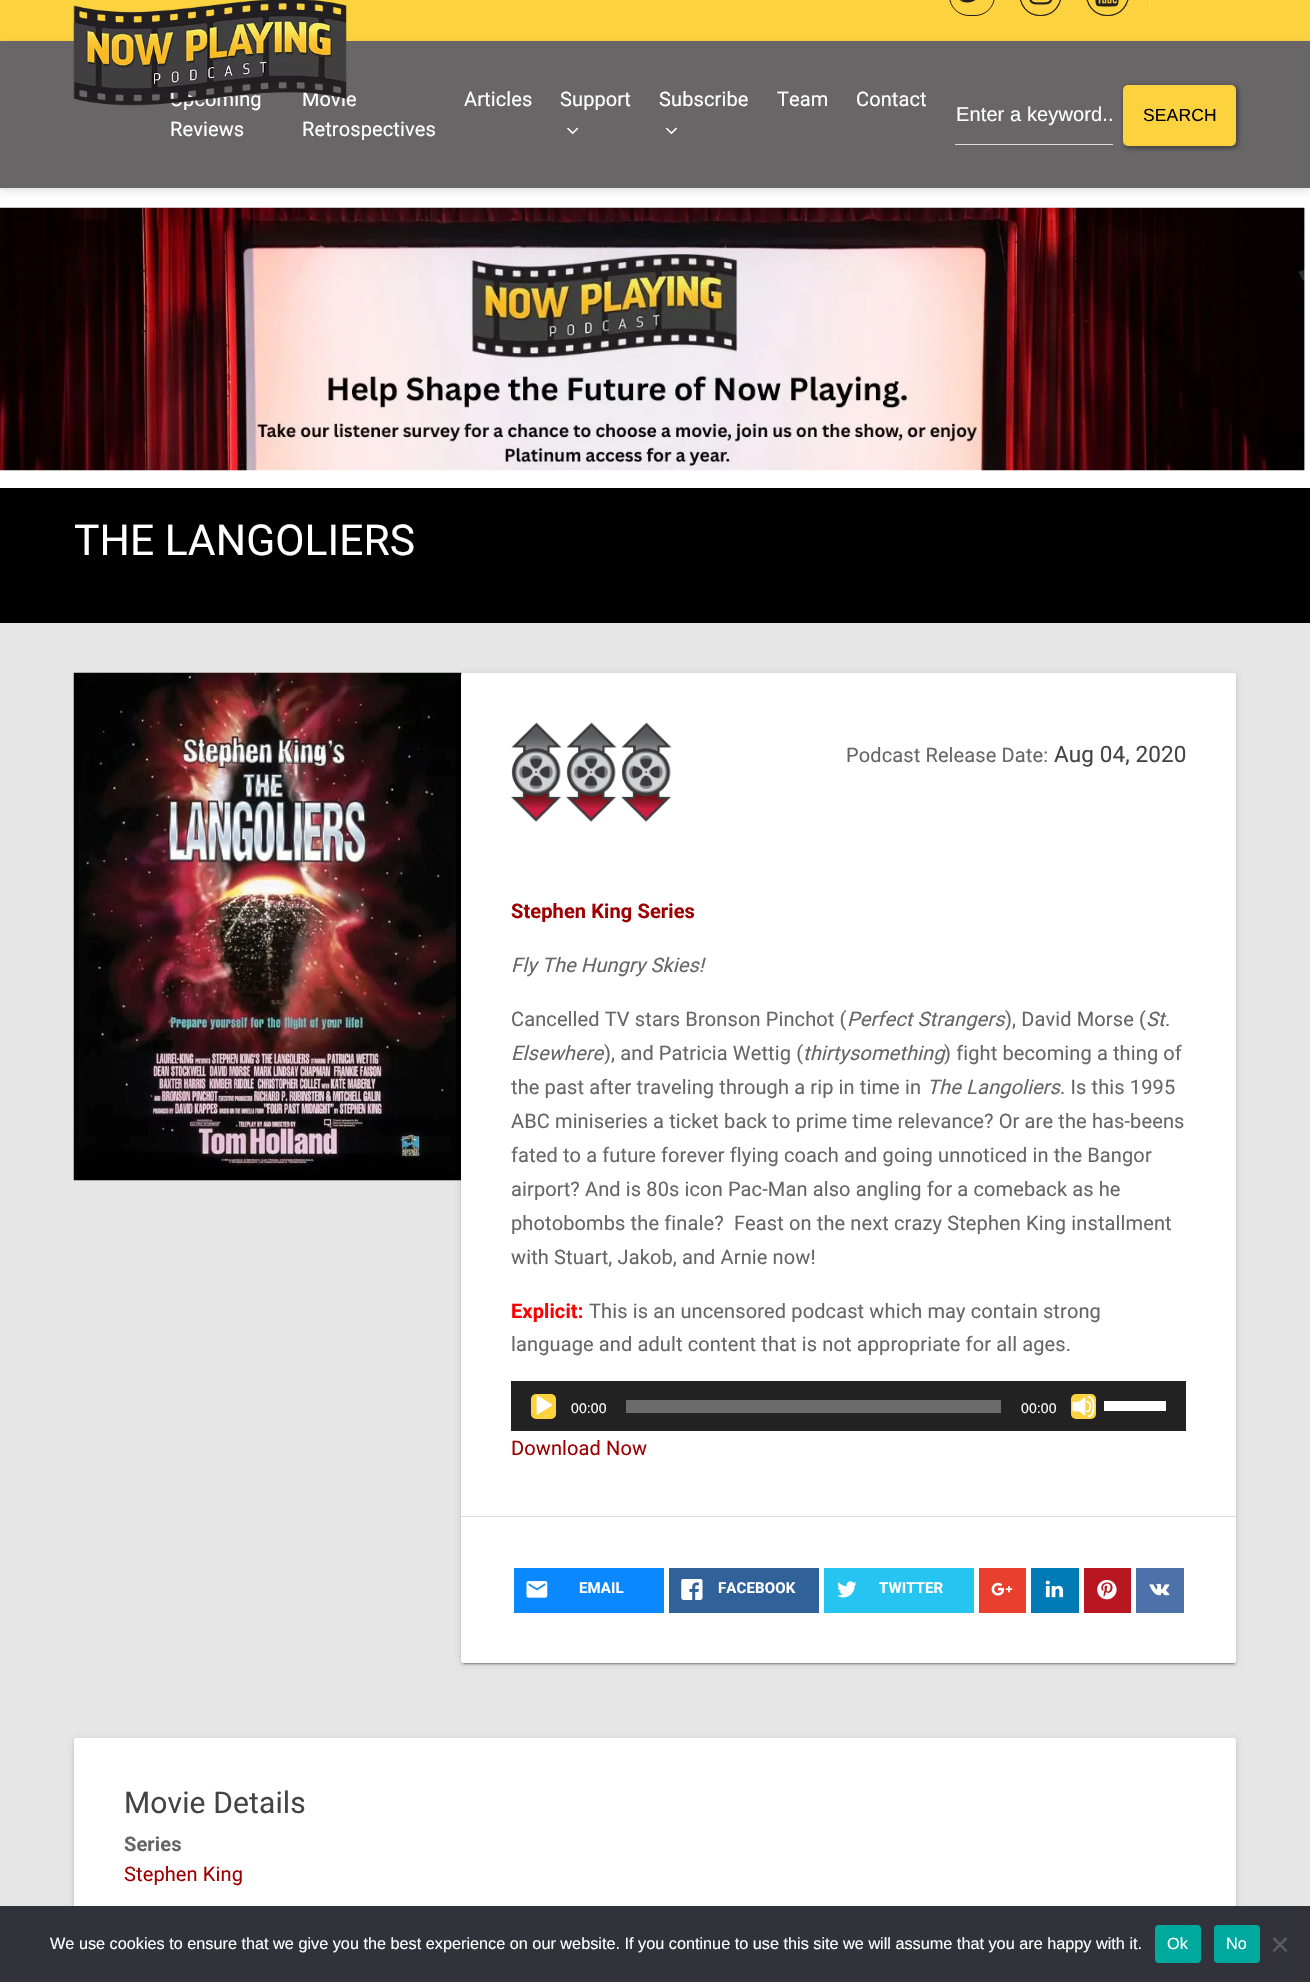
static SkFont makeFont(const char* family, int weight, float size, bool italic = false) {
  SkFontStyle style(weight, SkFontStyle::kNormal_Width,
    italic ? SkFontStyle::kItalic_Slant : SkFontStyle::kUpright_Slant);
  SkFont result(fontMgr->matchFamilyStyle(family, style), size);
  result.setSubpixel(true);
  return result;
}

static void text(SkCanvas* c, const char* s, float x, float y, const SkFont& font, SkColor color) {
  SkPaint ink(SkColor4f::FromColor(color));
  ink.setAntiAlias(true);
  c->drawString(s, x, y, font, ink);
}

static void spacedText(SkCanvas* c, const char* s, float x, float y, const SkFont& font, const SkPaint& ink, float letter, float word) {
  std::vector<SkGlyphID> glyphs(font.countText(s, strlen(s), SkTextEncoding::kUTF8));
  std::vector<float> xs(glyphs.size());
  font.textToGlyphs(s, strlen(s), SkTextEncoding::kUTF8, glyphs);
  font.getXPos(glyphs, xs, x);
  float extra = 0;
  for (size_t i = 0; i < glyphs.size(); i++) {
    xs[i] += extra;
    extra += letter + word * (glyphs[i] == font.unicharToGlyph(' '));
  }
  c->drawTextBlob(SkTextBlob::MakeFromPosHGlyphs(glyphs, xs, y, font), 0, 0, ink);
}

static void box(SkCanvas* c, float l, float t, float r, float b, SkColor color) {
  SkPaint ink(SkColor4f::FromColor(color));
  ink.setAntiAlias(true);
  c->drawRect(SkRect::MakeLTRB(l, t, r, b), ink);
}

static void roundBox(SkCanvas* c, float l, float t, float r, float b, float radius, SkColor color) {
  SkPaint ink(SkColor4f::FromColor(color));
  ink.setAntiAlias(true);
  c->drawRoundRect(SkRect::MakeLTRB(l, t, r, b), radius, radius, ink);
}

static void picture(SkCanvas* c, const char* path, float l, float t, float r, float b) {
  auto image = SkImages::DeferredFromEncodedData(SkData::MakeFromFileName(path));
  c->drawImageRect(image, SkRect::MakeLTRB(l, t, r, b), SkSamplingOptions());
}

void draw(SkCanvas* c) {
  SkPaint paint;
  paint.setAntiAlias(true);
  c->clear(0xffe6e6e6);
  box(c, 0, 0, 1310, 41, 0xfffcd23e);
  paint.setStyle(SkPaint::kStroke_Style);
  paint.setStrokeWidth(1);
  paint.setColor(0xff231e20);
  c->drawRoundRect(SkRect::MakeLTRB(949.5f, -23.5f, 994.5f, 15.5f), 22.5f, 22.5f, paint);
  picture(c, "img_01.png", 959, 0, 976, 3);
  paint.setStrokeWidth(1.2f);
  c->drawPath(SkPathBuilder().moveTo(1040.5f, -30.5f).cubicTo(1068.5f, -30.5f, 1068.5f, 15.5f, 1040.5f, 15.5f).cubicTo(1012.5f, 15.5f, 1012.5f, -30.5f, 1040.5f, -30.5f).close().detach(), paint);
  picture(c, "img_02.png", 1029, 0, 1053, 5);
  c->drawPath(SkPathBuilder().moveTo(1107.5f, -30.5f).cubicTo(1136, -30.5f, 1136, 15.5f, 1107.5f, 15.5f).cubicTo(1079, 15.5f, 1079, -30.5f, 1107.5f, -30.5f).close().detach(), paint);
  picture(c, "img_03.png", 1095, 0, 1119, 7);
  box(c, 1149, 0, 1150, 6, 0xffe0e0e0);
  box(c, 0, 189, 1310, 488, 0xffffffff);
  c->save();
  c->clipPath(SkPathBuilder(SkPathFillType::kEvenOdd).moveTo(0, 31).lineTo(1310, 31).lineTo(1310, 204).lineTo(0, 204).close().moveTo(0, 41).lineTo(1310, 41).lineTo(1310, 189).lineTo(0, 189).close().detach(), true);
  paint.setStyle(SkPaint::kFill_Style);
  paint.setColor(0x1f000000);
  paint.setMaskFilter(SkMaskFilter::MakeBlur(kNormal_SkBlurStyle, 4));
  c->drawRect(SkRect::MakeLTRB(0, 44, 1310, 191), paint);
  paint.setMaskFilter(nullptr);
  c->restore();
  box(c, 0, 41, 1310, 188, 0xa3231e20);
  box(c, 0, 188, 1310, 189, 0xffe6e6e6);
  SkFont face1 = makeFont("Roboto", 400, 20);
  paint.setColor(0xffffffff);
  spacedText(c, "Upcoming", 170, 106, face1, paint, 0.12f, 0);
  spacedText(c, "Movie", 302, 106, face1, paint, 0.12f, 0);
  picture(c, "img_04.png", 73, 0, 347, 106);
  spacedText(c, "Reviews", 170, 136, face1, paint, 0.12f, 0);
  spacedText(c, "Retrospectives", 302, 136, face1, paint, 0.12f, 0);
  spacedText(c, "Articles", 464, 106, face1, paint, 0.12f, 0);
  spacedText(c, "Support", 560, 106, face1, paint, 0.12f, 0);
  picture(c, "img_05.png", 567, 127, 579, 135);
  spacedText(c, "Subscribe", 659, 106, face1, paint, 0.12f, 0);
  picture(c, "img_06.png", 665, 127, 677, 135);
  spacedText(c, "Team", 777, 106, face1, paint, 0.12f, 0);
  spacedText(c, "Contact", 856, 106, face1, paint, 0.12f, 0);
  box(c, 955, 144, 1113, 145, 0xffdddddd);
  SkFont face2 = makeFont("Liberation Sans", 400, 20);
  spacedText(c, "Enter a keyword..", 956, 121, face2, paint, 0.12f, 0);
  paint.setColor(0x66000000);
  paint.setMaskFilter(SkMaskFilter::MakeBlur(kNormal_SkBlurStyle, 2.5f));
  c->drawRoundRect(SkRect::MakeLTRB(1124, 86, 1238, 148), 5, 5, paint);
  paint.setMaskFilter(nullptr);
  roundBox(c, 1123, 85, 1236, 146, 5, 0xfffcd23e);
  SkFont face3 = makeFont("Liberation Sans", 400, 17.5f);
  paint.setColor(0xff000000);
  spacedText(c, "SEARCH", 1143, 121, face3, paint, 0.12f, 0);
  picture(c, "img_07.png", 0, 207, 1308, 471);
  box(c, 0, 488, 1310, 623, 0xff000000);
  SkFont face4 = makeFont("Roboto", 400, 42.5f);
  paint.setColor(0xffffffff);
  spacedText(c, "THE LANGOLIERS", 74, 555, face4, paint, 0.12f, 0);
  box(c, 74, 1180, 461, 1181, 0xffe0e0e0);
  picture(c, "img_08.png", 73, 672, 462, 1181);
  paint.setColor(0x33000000);
  paint.setMaskFilter(SkMaskFilter::MakeBlur(kNormal_SkBlurStyle, 0.5f));
  c->drawRect(SkRect::MakeLTRB(464, 679, 1234, 1664), paint);
  paint.setMaskFilter(nullptr);
  paint.setColor(0x1f000000);
  paint.setMaskFilter(SkMaskFilter::MakeBlur(kNormal_SkBlurStyle, 3));
  c->drawRoundRect(SkRect::MakeLTRB(461, 674, 1236, 1664), 2.5f, 2.5f, paint);
  paint.setMaskFilter(nullptr);
  paint.setColor(0x24000000);
  paint.setMaskFilter(SkMaskFilter::MakeBlur(kNormal_SkBlurStyle, 1));
  c->drawRoundRect(SkRect::MakeLTRB(461, 675, 1236, 1665), 2.5f, 2.5f, paint);
  paint.setMaskFilter(nullptr);
  roundBox(c, 461, 673, 1236, 1663, 2.5f, 0xffffffff);
  picture(c, "img_09.png", 511, 722, 562, 822);
  picture(c, "img_09.png", 566, 722, 617, 822);
  picture(c, "img_09.png", 621, 722, 672, 822);
  paint.setColor(0xff666666);
  spacedText(c, "Podcast Release Date:", 846, 762, face1, paint, 0.12f, 0);
  SkFont face5 = makeFont("Roboto", 400, 22.5f);
  paint.setColor(0xff444444);
  spacedText(c, "Aug 04, 2020", 1054, 762, face5, paint, 0.12f, 0);
  SkFont face6 = makeFont("Roboto", 700, 20);
  paint.setColor(0xff9f0001);
  spacedText(c, "Stephen King Series", 511, 918, face6, paint, 0.12f, 0);
  SkFont face7 = makeFont("Roboto", 400, 20, true);
  paint.setColor(0xff666666);
  spacedText(c, "Fly The Hungry Skies!", 511, 972, face7, paint, 0.12f, 0);
  spacedText(c, "Cancelled TV stars Bronson Pinchot (", 511, 1026, face1, paint, 0.12f, 0);
  spacedText(c, "Perfect Strangers", 847, 1026, face7, paint, 0.12f, 0);
  spacedText(c, "), David Morse (", 1005, 1026, face1, paint, 0.12f, 0);
  spacedText(c, "St.", 1146, 1026, face7, paint, 0.12f, 0);
  spacedText(c, "Elsewhere", 511, 1060, face7, paint, 0.12f, 0);
  spacedText(c, "), and Patricia Wettig (", 604, 1060, face1, paint, 0.12f, 0);
  spacedText(c, "thirtysomething", 803, 1060, face7, paint, 0.12f, 0);
  spacedText(c, ") fight becoming a thing of", 944, 1060, face1, paint, 0.12f, 0);
  spacedText(c, "the past after traveling through a rip in time in", 511, 1094, face1, paint, 0.12f, 0);
  spacedText(c, "The Langoliers", 927, 1094, face7, paint, 0.12f, 0);
  spacedText(c, ". Is this 1995", 1060, 1094, face1, paint, 0.12f, 0);
  spacedText(c, "ABC miniseries a ticket back to prime time relevance? Or are the has-beens", 511, 1128, face1, paint, 0.12f, 0);
  spacedText(c, "fated to a future forever flying coach and going unnoticed in the Bangor", 511, 1162, face1, paint, 0.12f, 0);
  spacedText(c, "airport? And is 80s icon Pac-Man also angling for a comeback as he", 511, 1196, face1, paint, 0.12f, 0);
  spacedText(c, "photobombs the finale?  Feast on the next crazy Stephen King installment", 511, 1230, face1, paint, 0.12f, 0);
  spacedText(c, "with Stuart, Jakob, and Arnie now!", 511, 1264, face1, paint, 0.12f, 0);
  paint.setColor(0xffff0000);
  spacedText(c, "Explicit:", 511, 1318, face6, paint, 0.12f, 0);
  paint.setColor(0xff666666);
  spacedText(c, "This is an uncensored podcast which may contain strong", 589, 1318, face1, paint, 0.12f, 0);
  spacedText(c, "language and adult content that is not appropriate for all ages.", 511, 1351, face1, paint, 0.12f, 0);
  box(c, 511, 1381, 1186, 1431, 0xff222222);
  roundBox(c, 531, 1394, 556, 1419, 5, 0xfffcd23e);
  picture(c, "img_10.png", 536, 1395, 553, 1415);
  SkFont face8 = makeFont("Liberation Sans", 400, 14);
  paint.setColor(0xffffffff);
  spacedText(c, "00:00", 571, 1413, face8, paint, 0.12f, 0);
  box(c, 626, 1400, 1001, 1413, 0xff6b6b6b);
  spacedText(c, "00:00", 1021, 1413, face8, paint, 0.12f, 0);
  roundBox(c, 1071, 1394, 1096, 1419, 5, 0xfffcd23e);
  picture(c, "img_11.png", 1072, 1395, 1095, 1418);
  box(c, 1104, 1401, 1166, 1411, 0xffffffff);
  paint.setColor(0xff9f0001);
  spacedText(c, "Download Now", 511, 1455, face1, paint, 0.12f, 0);
  box(c, 461, 1516, 1236, 1517, 0xffe0e0e0);
  box(c, 514, 1568, 664, 1613, 0xff0a88ff);
  picture(c, "img_12.png", 526, 1581, 548, 1598);
  SkFont face9 = makeFont("Roboto", 700, 15);
  paint.setColor(0xffffffff);
  spacedText(c, "EMAIL", 579, 1593, face9, paint, 0.12f, 0);
  box(c, 669, 1568, 819, 1613, 0xff306199);
  picture(c, "img_13.png", 681, 1579, 703, 1600);
  spacedText(c, "FACEBOOK", 718, 1593, face9, paint, 0.12f, 0);
  box(c, 824, 1568, 974, 1613, 0xff26c4f1);
  picture(c, "img_14.png", 837, 1581, 857, 1598);
  spacedText(c, "TWITTER", 879, 1593, face9, paint, 0.12f, 0);
  box(c, 979, 1568, 1026, 1613, 0xffe93f2e);
  picture(c, "img_15.png", 991, 1582, 1013, 1596);
  box(c, 1031, 1568, 1079, 1613, 0xff007bb6);
  picture(c, "img_16.png", 1045, 1580, 1064, 1598);
  box(c, 1084, 1568, 1131, 1613, 0xffb81621);
  picture(c, "img_17.png", 1097, 1579, 1117, 1600);
  box(c, 1136, 1568, 1184, 1613, 0xff4d71a9);
  picture(c, "img_18.png", 1149, 1583, 1170, 1596);
  paint.setColor(0x1f000000);
  paint.setMaskFilter(SkMaskFilter::MakeBlur(kNormal_SkBlurStyle, 3));
  c->drawRoundRect(SkRect::MakeLTRB(74, 1739, 1236, 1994), 2.5f, 2.5f, paint);
  paint.setMaskFilter(nullptr);
  paint.setColor(0x24000000);
  paint.setMaskFilter(SkMaskFilter::MakeBlur(kNormal_SkBlurStyle, 1));
  c->drawRoundRect(SkRect::MakeLTRB(74, 1740, 1236, 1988), 2.5f, 2.5f, paint);
  paint.setMaskFilter(nullptr);
  roundBox(c, 74, 1738, 1236, 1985, 2.5f, 0xffffffff);
  SkFont face10 = makeFont("Roboto", 400, 30);
  paint.setColor(0xff444444);
  spacedText(c, "Movie Details", 124, 1813, face10, paint, 0.12f, 0);
  paint.setColor(0xff666666);
  spacedText(c, "Series", 124, 1851, face6, paint, 0.12f, 0);
  paint.setColor(0xff9f0001);
  spacedText(c, "Stephen King", 124, 1881, face1, paint, 0.12f, 0);
  box(c, 0, 1906, 1310, 1982, 0xff32323a);
  SkFont face11 = makeFont("Liberation Sans", 400, 16.25f);
  text(c, "We use cookies to ensure that we give you the best experience on our website. If you continue to use this site we will assume that you are happy with it.", 50, 1949, face11, 0xffffffff);
  roundBox(c, 1155, 1925, 1201, 1963, 4, 0xff00a99d);
  text(c, "Ok", 1167, 1949, face11, 0xffffffff);
  roundBox(c, 1214, 1925, 1260, 1963, 4, 0xff00a99d);
  text(c, "No", 1226, 1949, face11, 0xffffffff);
  paint.setColor(0xff59595d);
  c->drawPath(SkPathBuilder().moveTo(1285.5f, 1937).lineTo(1287.5f, 1939).lineTo(1274.5f, 1952).lineTo(1272.5f, 1950.5f).close().detach(), paint);
  c->drawPath(SkPathBuilder().moveTo(1272.5f, 1939).lineTo(1274.5f, 1937).lineTo(1287.5f, 1950.5f).lineTo(1285.5f, 1952).close().detach(), paint);
}
